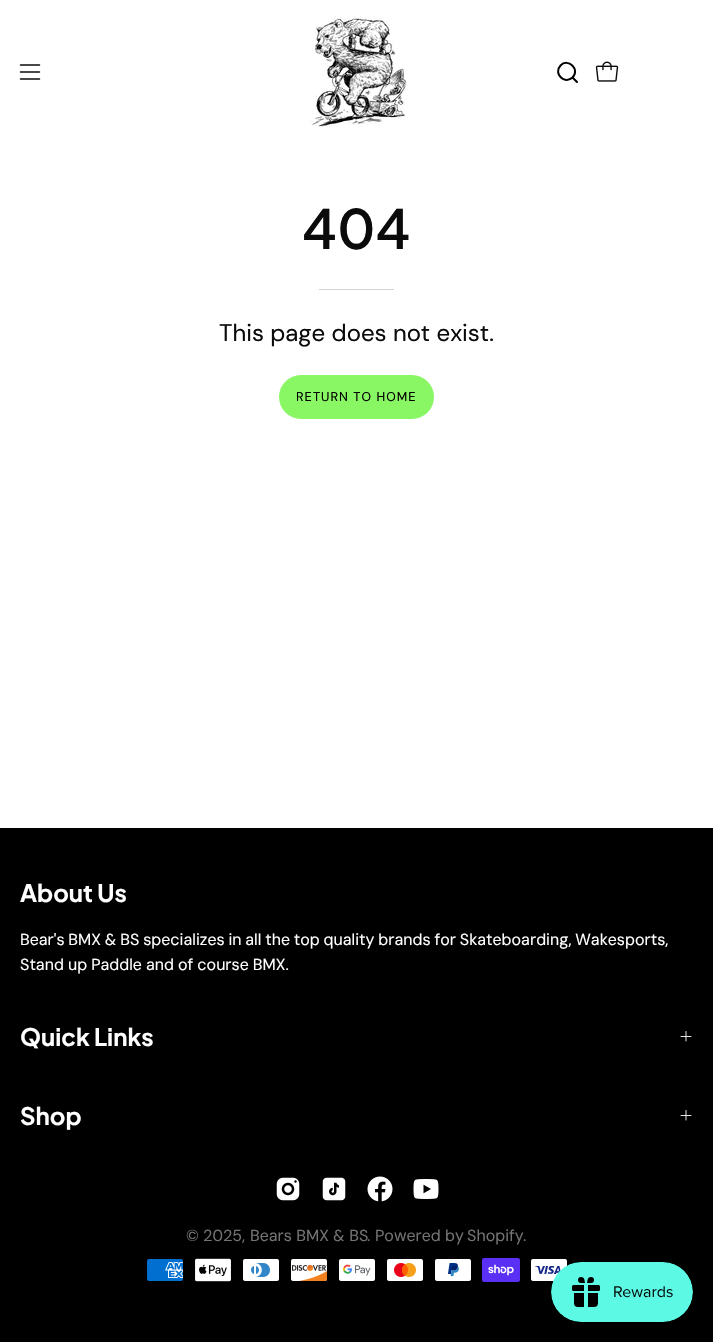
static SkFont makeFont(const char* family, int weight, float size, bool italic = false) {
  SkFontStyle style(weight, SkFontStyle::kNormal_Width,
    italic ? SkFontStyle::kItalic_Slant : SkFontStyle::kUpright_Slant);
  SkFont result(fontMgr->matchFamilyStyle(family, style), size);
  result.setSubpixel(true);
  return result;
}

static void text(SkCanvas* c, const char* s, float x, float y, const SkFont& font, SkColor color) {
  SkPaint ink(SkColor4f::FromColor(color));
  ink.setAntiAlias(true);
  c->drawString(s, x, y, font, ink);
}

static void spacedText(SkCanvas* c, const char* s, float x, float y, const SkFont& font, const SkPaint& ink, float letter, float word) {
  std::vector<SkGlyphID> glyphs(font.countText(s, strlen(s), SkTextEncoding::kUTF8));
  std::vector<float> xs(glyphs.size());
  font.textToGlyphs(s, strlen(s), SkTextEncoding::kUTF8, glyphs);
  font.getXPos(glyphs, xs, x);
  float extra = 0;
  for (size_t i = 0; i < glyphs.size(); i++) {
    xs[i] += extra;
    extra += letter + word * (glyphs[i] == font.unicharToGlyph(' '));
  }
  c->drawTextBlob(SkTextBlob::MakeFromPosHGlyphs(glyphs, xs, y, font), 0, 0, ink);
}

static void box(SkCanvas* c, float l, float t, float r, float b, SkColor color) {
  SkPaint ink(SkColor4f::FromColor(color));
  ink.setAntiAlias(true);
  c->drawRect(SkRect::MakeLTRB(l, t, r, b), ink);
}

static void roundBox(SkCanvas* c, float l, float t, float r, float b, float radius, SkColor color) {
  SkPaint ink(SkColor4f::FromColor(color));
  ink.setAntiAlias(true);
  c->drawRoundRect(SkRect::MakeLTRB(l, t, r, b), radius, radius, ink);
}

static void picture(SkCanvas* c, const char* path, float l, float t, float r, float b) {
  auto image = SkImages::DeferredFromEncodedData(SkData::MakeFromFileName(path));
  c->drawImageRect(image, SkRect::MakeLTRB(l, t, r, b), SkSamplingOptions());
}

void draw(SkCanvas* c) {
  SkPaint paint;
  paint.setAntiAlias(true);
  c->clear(0xffffffff);
  paint.setStyle(SkPaint::kStroke_Style);
  paint.setStrokeWidth(1.5f);
  paint.setStrokeCap(SkPaint::kRound_Cap);
  paint.setStrokeJoin(SkPaint::kRound_Join);
  paint.setColor(0xff0b0b0b);
  c->drawPath(SkPathBuilder().moveTo(20.5f, 72).lineTo(39.5f, 72).moveTo(20.5f, 65).lineTo(39.5f, 65).moveTo(20.5f, 79).lineTo(39.5f, 79).detach(), paint);
  picture(c, "img_01.png", 307, 15, 407, 127);
  paint.setStrokeWidth(2);
  paint.setColor(0xff000000);
  c->drawPath(SkPathBuilder().moveTo(577, 82).lineTo(572.5f, 77.5f).moveTo(572.5f, 77.5f).cubicTo(580.5f, 69.5f, 568, 57.5f, 560.5f, 65.5f).cubicTo(553, 73.5f, 564.5f, 85, 572.5f, 77.5f).close().detach(), paint);
  picture(c, "img_02.png", 595, 61, 619, 82);
  SkFont face1 = makeFont("Plus Jakarta Sans", 600, 54);
  text(c, "404", 302, 249, face1, 0xff0b0b0b);
  box(c, 319, 289, 394, 290, 0xffd3d3d3);
  SkFont face2 = makeFont("DM Sans", 400, 24);
  text(c, "This page does not exist.", 219, 341, face2, 0xff0b0b0b);
  roundBox(c, 279, 375, 434, 419, 22, 0xff89f764);
  SkFont face3 = makeFont("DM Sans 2", 400, 12.75f);
  paint.setStyle(SkPaint::kFill_Style);
  spacedText(c, "RETURN TO HOME", 296, 401, face3, paint, 1, 0);
  box(c, 0, 828, 713, 1342, 0xff000000);
  SkFont face4 = makeFont("Plus Jakarta Sans", 700, 24);
  text(c, "About Us", 20, 902, face4, 0xffffffff);
  SkFont face5 = makeFont("DM Sans 2", 400, 16);
  paint.setColor(0xffffffff);
  spacedText(c, "Bear's BMX & BS specializes in all the top quality brands for Skateboarding, Wakesports,", 20, 945, face5, paint, 0, -0.5f);
  spacedText(c, "Stand up Paddle and of course BMX.", 20, 970, face5, paint, 0, -0.25f);
  text(c, "Quick Links", 20, 1046, face4, 0xffffffff);
  paint.setStyle(SkPaint::kStroke_Style);
  paint.setStrokeWidth(0.9f);
  c->drawPath(SkPathBuilder().moveTo(681, 1036.5f).lineTo(691, 1036.5f).moveTo(686, 1031.5f).lineTo(686, 1041).detach(), paint);
  text(c, "Shop", 20, 1125, face4, 0xffffffff);
  c->drawPath(SkPathBuilder().moveTo(681, 1115.5f).lineTo(691, 1115.5f).moveTo(686, 1110.5f).lineTo(686, 1120).detach(), paint);
  picture(c, "img_03.png", 276, 1177, 300, 1201);
  picture(c, "img_04.png", 322, 1177, 346, 1201);
  picture(c, "img_05.png", 367, 1176, 393, 1202);
  picture(c, "img_06.png", 413, 1179, 439, 1199);
  text(c, "© 2025,", 186, 1241, face5, 0xff747474);
  text(c, "Bears BMX & BS", 250, 1241, face5, 0xff747474);
  text(c, ".", 367, 1241, face5, 0xff747474);
  text(c, "Powered by", 375, 1241, face5, 0xff747474);
  text(c, "Shopify", 467, 1241, face5, 0xff747474);
  text(c, ".", 523, 1241, face5, 0xff747474);
  picture(c, "img_07.png", 147, 1259, 183, 1281);
  picture(c, "img_08.png", 195, 1258, 231, 1282);
  picture(c, "img_09.png", 243, 1259, 279, 1281);
  picture(c, "img_10.png", 291, 1259, 328, 1281);
  picture(c, "img_11.png", 339, 1259, 375, 1281);
  picture(c, "img_12.png", 387, 1259, 423, 1281);
  picture(c, "img_13.png", 435, 1259, 471, 1281);
  picture(c, "img_14.png", 482, 1258, 520, 1282);
  picture(c, "img_15.png", 531, 1259, 567, 1281);
  picture(c, "img_16.png", 551, 1262, 693, 1322);
}
